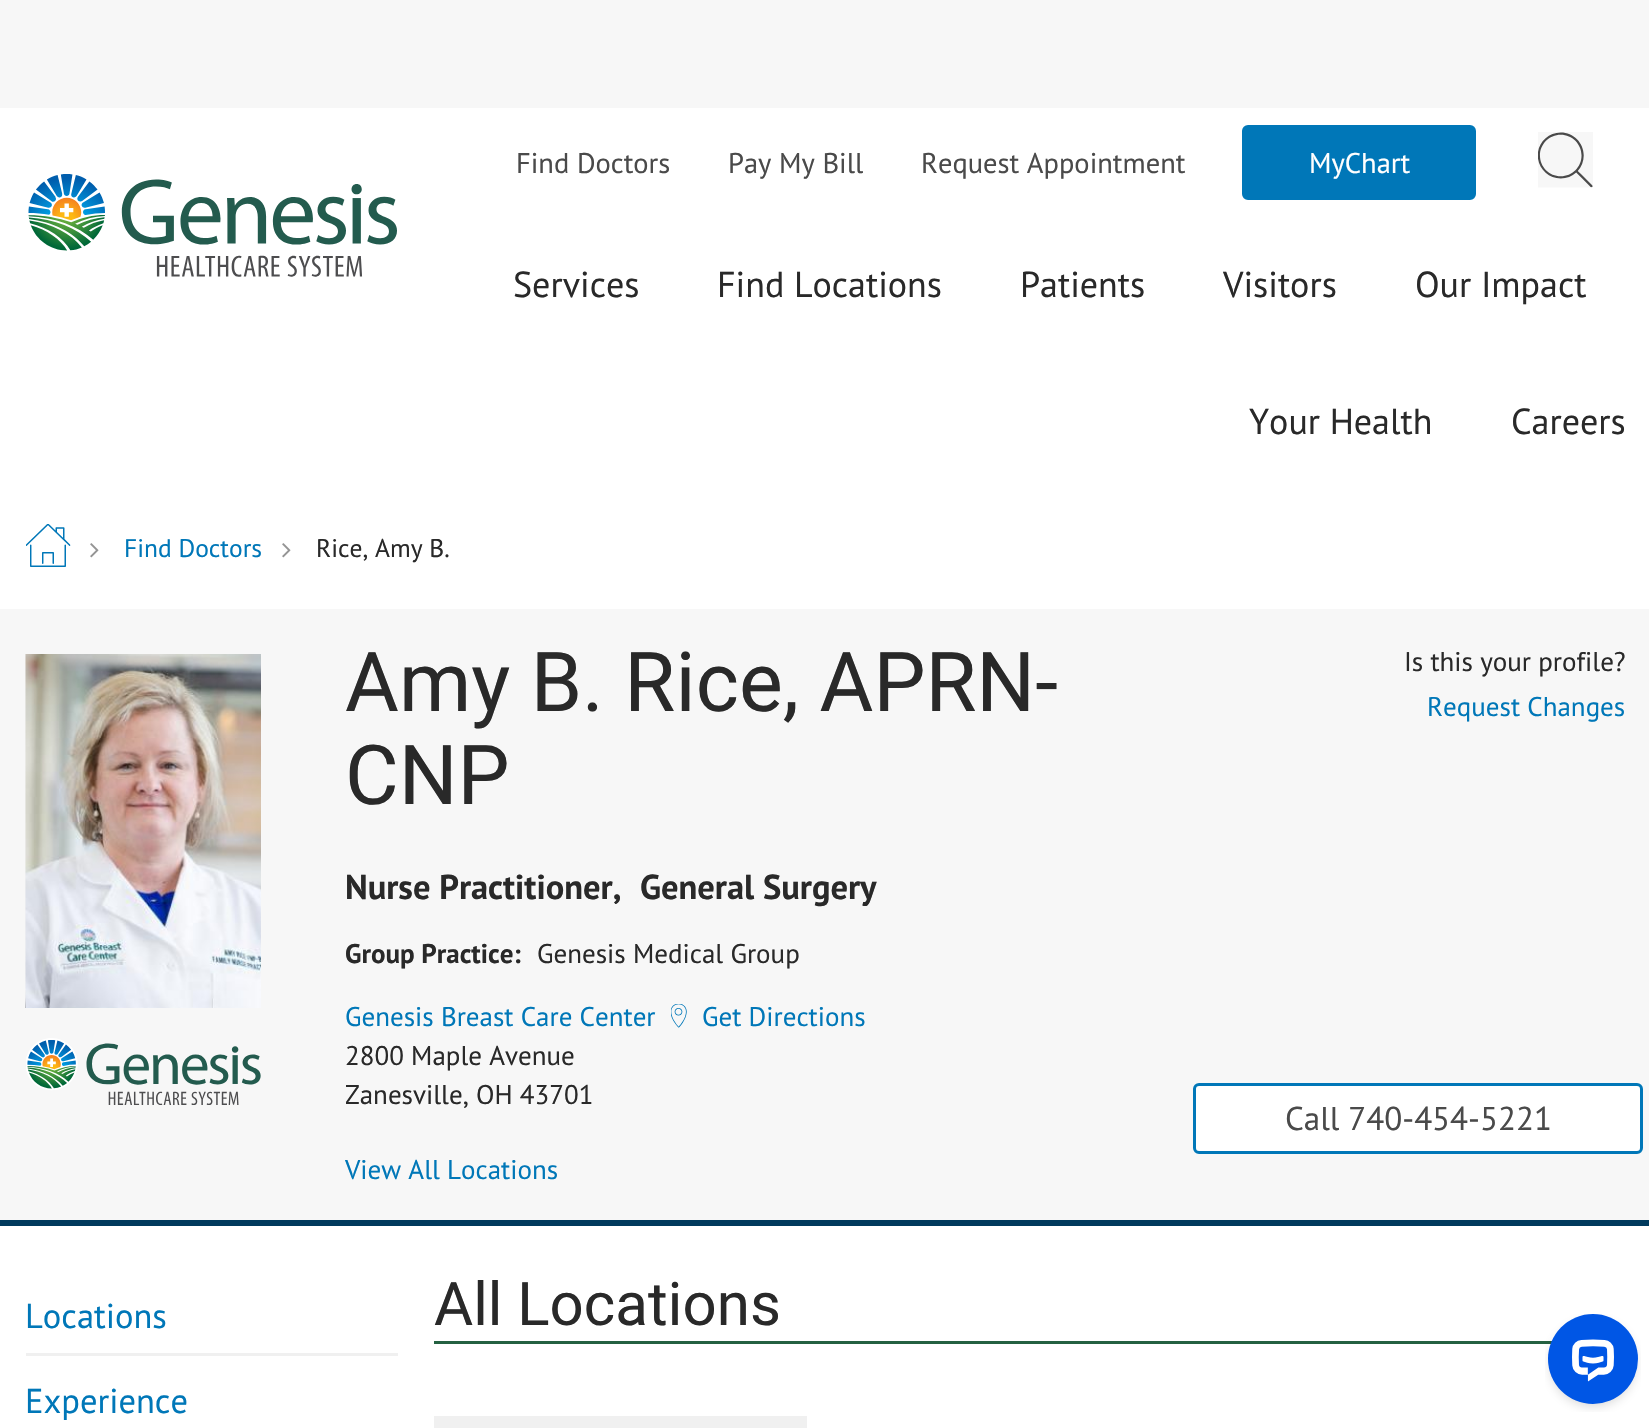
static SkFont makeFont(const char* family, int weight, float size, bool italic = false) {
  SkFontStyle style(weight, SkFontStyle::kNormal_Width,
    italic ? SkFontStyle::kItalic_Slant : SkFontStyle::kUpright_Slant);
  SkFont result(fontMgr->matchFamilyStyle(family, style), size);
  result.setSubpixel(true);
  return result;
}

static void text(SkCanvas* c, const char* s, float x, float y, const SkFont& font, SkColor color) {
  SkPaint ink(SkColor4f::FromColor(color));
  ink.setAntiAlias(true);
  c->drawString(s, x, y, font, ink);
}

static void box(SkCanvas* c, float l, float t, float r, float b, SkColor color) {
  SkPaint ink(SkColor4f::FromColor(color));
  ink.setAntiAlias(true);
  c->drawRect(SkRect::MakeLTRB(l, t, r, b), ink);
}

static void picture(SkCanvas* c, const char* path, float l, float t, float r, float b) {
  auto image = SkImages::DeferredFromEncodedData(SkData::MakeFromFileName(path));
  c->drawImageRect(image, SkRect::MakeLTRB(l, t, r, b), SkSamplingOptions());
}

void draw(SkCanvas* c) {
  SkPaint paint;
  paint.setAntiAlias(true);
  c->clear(0xffffffff);
  box(c, 0, 0, 1649, 108, 0xfff7f7f7);
  picture(c, "img_01.png", 28, 174, 397, 277);
  SkFont face1 = makeFont("PT Sans", 400, 28.5f);
  text(c, "Find Doctors", 516, 173, face1, 0xff4a4a4a);
  text(c, "Pay My Bill", 728, 173, face1, 0xff4a4a4a);
  text(c, "Request Appointment", 921, 173, face1, 0xff4a4a4a);
  paint.setColor(0xff0077b8);
  c->drawRoundRect(SkRect::MakeLTRB(1243.5f, 126.5f, 1474.5f, 198.5f), 4.5f, 4.5f, paint);
  paint.setStyle(SkPaint::kStroke_Style);
  paint.setStrokeWidth(3);
  c->drawRoundRect(SkRect::MakeLTRB(1243.5f, 126.5f, 1474.5f, 198.5f), 4.5f, 4.5f, paint);
  text(c, "MyChart", 1309, 173, face1, 0xffffffff);
  picture(c, "img_02.png", 1538, 132, 1593, 188);
  SkFont face2 = makeFont("PT Sans", 400, 36);
  text(c, "Services", 513, 297, face2, 0xff292929);
  text(c, "Find Locations", 717, 297, face2, 0xff292929);
  text(c, "Patients", 1020, 297, face2, 0xff292929);
  text(c, "Visitors", 1223, 297, face2, 0xff292929);
  text(c, "Our Impact", 1415, 297, face2, 0xff292929);
  text(c, "Your Health", 1249, 434, face2, 0xff292929);
  text(c, "Careers", 1511, 434, face2, 0xff292929);
  picture(c, "img_03.png", 26, 524, 71, 567);
  picture(c, "img_04.png", 90, 543, 99, 558);
  SkFont face3 = makeFont("PT Sans", 400, 25.5f);
  text(c, "Find Doctors", 124, 557, face3, 0xff0077b8);
  picture(c, "img_04.png", 282, 543, 291, 558);
  text(c, "Rice, Amy B.", 316, 557, face3, 0xff292929);
  box(c, 0, 609, 1649, 1220, 0xfff7f7f7);
  box(c, 0, 1220, 1649, 1226, 0xff003a5d);
  picture(c, "img_05.png", 25, 654, 26, 1008);
  picture(c, "img_06.png", 25, 654, 261, 1008);
  picture(c, "img_07.png", 26, 1038, 261, 1105);
  SkFont face4 = makeFont("Heebo", 400, 82.5f);
  text(c, "Amy B. Rice, APRN-", 345, 711, face4, 0xff292929);
  text(c, "CNP", 345, 804, face4, 0xff292929);
  SkFont face5 = makeFont("PT Sans", 700, 34.5f);
  text(c, "Nurse Practitioner,", 345, 899, face5, 0xff292929);
  text(c, "General Surgery", 640, 899, face5, 0xff292929);
  SkFont face6 = makeFont("PT Sans", 700, 27);
  text(c, "Group Practice:", 345, 963, face6, 0xff292929);
  SkFont face7 = makeFont("PT Sans", 400, 27);
  text(c, "Genesis Medical Group", 537, 963, face7, 0xff292929);
  text(c, "Genesis Breast Care Center", 345, 1026, face7, 0xff0077b8);
  text(c, "2800 Maple Avenue", 345, 1065, face7, 0xff292929);
  text(c, "Zanesville, OH 43701", 345, 1104, face7, 0xff292929);
  picture(c, "img_08.png", 671, 1004, 687, 1028);
  text(c, "Get Directions", 702, 1026, face7, 0xff0077b8);
  text(c, "View All Locations", 345, 1179, face7, 0xff0077b8);
  text(c, "Is this your profile?", 1404, 671, face7, 0xff292929);
  text(c, "Request Changes", 1427, 716, face7, 0xff0077b8);
  paint.setStyle(SkPaint::kFill_Style);
  paint.setColor(0xffffffff);
  c->drawRoundRect(SkRect::MakeLTRB(1194.5f, 1084.5f, 1641.5f, 1152.5f), 4.5f, 4.5f, paint);
  paint.setStyle(SkPaint::kStroke_Style);
  paint.setColor(0xff0077b8);
  c->drawRoundRect(SkRect::MakeLTRB(1194.5f, 1084.5f, 1641.5f, 1152.5f), 4.5f, 4.5f, paint);
  SkFont face8 = makeFont("PT Sans", 400, 33);
  text(c, "Call 740-454-5221", 1285, 1130, face8, 0xff4a4a4a);
  SkFont face9 = makeFont("PT Sans", 400, 34.5f);
  text(c, "Locations", 25, 1328, face9, 0xff0077b8);
  box(c, 26, 1353, 398, 1356, 0xfff0f0f0);
  text(c, "Experience", 25, 1413, face9, 0xff0077b8);
  box(c, 434, 1341, 1552, 1344, 0xff246141);
  SkFont face10 = makeFont("Heebo", 400, 60);
  text(c, "All Locations", 434, 1325, face10, 0xff292929);
  box(c, 434, 1416, 807, 1418, 0xfff0f0f0);
  paint.setStyle(SkPaint::kFill_Style);
  paint.setColor(0xfff0f0f0);
  c->drawPath(SkPathBuilder().moveTo(807, 1416).lineTo(807, 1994).lineTo(806, 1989).lineTo(806, 1418).close().detach(), paint);
  c->drawPath(SkPathBuilder().moveTo(434, 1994).lineTo(434, 1416).lineTo(435, 1418).lineTo(435, 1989).close().detach(), paint);
  box(c, 435, 1418, 806, 1428, 0xfff0f0f0);
  picture(c, "img_09.png", 1545, 1314, 1641, 1412);
}
